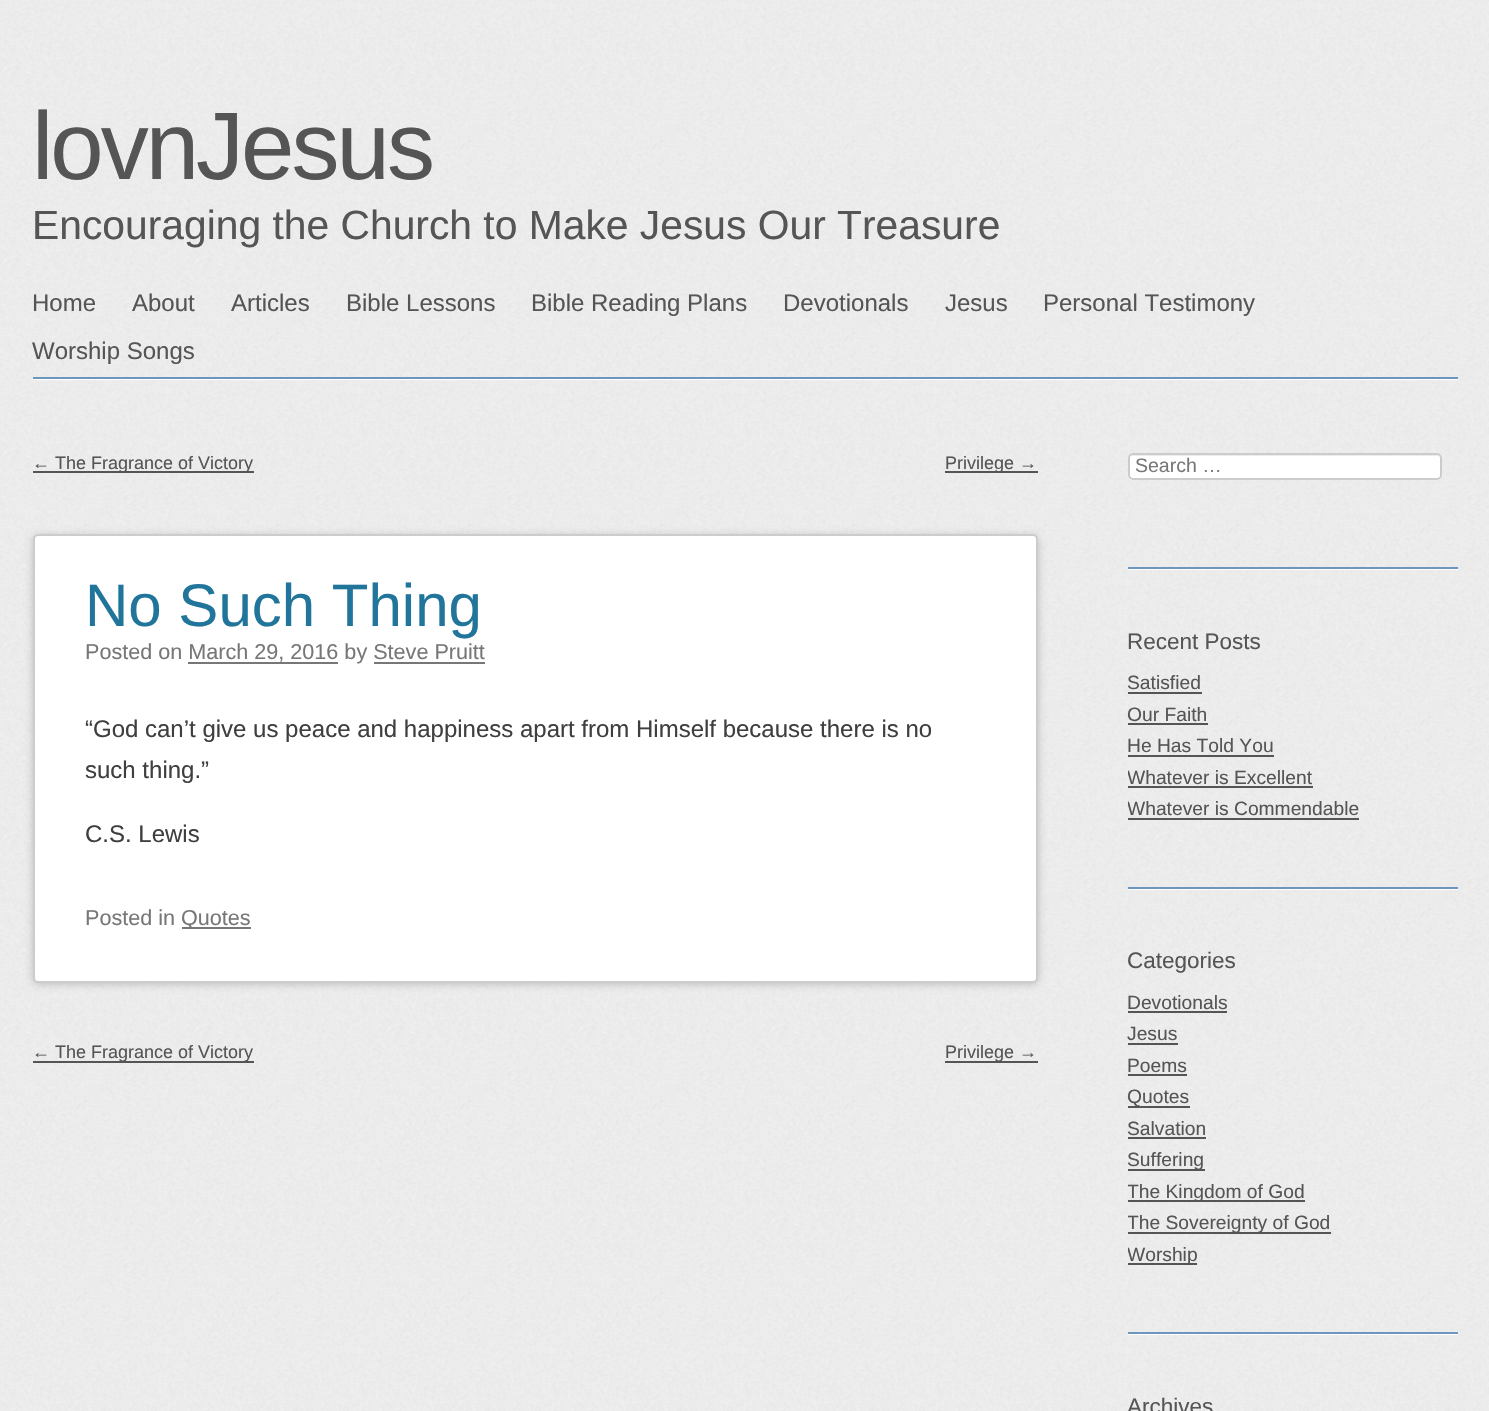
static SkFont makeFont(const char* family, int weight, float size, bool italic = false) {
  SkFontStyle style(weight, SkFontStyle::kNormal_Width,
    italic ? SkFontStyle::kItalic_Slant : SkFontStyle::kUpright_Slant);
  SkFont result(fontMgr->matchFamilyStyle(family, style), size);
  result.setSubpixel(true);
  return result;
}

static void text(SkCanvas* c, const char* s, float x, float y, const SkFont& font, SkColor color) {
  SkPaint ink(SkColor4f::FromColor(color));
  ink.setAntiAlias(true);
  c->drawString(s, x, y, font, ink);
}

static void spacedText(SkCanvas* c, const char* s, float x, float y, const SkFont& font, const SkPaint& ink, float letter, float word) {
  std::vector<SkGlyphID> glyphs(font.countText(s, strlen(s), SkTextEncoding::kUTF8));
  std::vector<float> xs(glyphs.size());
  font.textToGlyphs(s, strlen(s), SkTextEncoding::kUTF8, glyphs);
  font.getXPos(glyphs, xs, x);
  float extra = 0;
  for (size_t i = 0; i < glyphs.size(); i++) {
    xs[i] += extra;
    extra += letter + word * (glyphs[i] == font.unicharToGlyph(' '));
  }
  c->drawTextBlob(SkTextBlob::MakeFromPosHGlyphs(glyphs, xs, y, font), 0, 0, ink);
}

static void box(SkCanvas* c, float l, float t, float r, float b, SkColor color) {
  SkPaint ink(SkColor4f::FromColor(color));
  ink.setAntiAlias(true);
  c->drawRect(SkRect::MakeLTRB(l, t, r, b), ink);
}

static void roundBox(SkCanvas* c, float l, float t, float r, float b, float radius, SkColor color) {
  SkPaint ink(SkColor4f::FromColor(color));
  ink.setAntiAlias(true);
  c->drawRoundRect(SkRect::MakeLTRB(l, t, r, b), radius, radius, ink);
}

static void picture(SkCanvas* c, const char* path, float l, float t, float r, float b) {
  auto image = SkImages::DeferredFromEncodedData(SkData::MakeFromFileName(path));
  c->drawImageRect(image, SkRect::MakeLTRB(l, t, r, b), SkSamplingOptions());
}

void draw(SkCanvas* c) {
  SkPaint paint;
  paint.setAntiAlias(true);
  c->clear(0xfff0f0f0);
  picture(c, "img_01.png", 0, 0, 1489, 1411);
  SkFont face1 = makeFont("Liberation Sans", 400, 96);
  paint.setColor(0xff555555);
  spacedText(c, "lovnJesus", 32, 179, face1, paint, -3, 0);
  SkFont face2 = makeFont("Liberation Sans", 400, 40.8f);
  text(c, "Encouraging the Church to Make Jesus Our Treasure", 32, 239, face2, 0xff555555);
  box(c, 33, 379, 1458, 380, 0xffffffff);
  box(c, 33, 377, 1458, 379, 0xff6b97bf);
  SkFont face3 = makeFont("Liberation Sans", 400, 24);
  text(c, "Home", 32, 311, face3, 0xff555555);
  text(c, "About", 132, 311, face3, 0xff555555);
  text(c, "Articles", 231, 311, face3, 0xff555555);
  text(c, "Bible Lessons", 346, 311, face3, 0xff555555);
  text(c, "Bible Reading Plans", 531, 311, face3, 0xff555555);
  text(c, "Devotionals", 783, 311, face3, 0xff555555);
  text(c, "Jesus", 945, 311, face3, 0xff555555);
  text(c, "Personal Testimony", 1043, 311, face3, 0xff555555);
  text(c, "Worship Songs", 32, 359, face3, 0xff555555);
  box(c, 33, 471, 254, 473, 0xff555555);
  SkFont face4 = makeFont("Liberation Sans", 400, 18);
  text(c, "← The Fragrance of Victory", 32, 469, face4, 0xff555555);
  box(c, 945, 471, 1038, 473, 0xff555555);
  text(c, "Privilege →", 945, 469, face4, 0xff555555);
  paint.setColor(0x33000000);
  paint.setMaskFilter(SkMaskFilter::MakeBlur(kNormal_SkBlurStyle, 4));
  c->drawRoundRect(SkRect::MakeLTRB(33, 536, 1038, 984), 5, 5, paint);
  paint.setMaskFilter(nullptr);
  paint.setColor(0xffffffff);
  c->drawRoundRect(SkRect::MakeLTRB(34, 535, 1037, 982), 4, 4, paint);
  paint.setStyle(SkPaint::kStroke_Style);
  paint.setStrokeWidth(2);
  paint.setColor(0xffcccccc);
  c->drawRoundRect(SkRect::MakeLTRB(34, 535, 1037, 982), 4, 4, paint);
  SkFont face5 = makeFont("Liberation Sans", 400, 60);
  text(c, "No Such Thing", 85, 626, face5, 0xff21759b);
  SkFont face6 = makeFont("Liberation Sans", 400, 21.6f);
  text(c, "Posted on March 29, 2016 by Steve Pruitt", 85, 659, face6, 0xff777777);
  box(c, 188, 662, 338, 664, 0xff777777);
  box(c, 374, 662, 485, 664, 0xff777777);
  text(c, "“God can’t give us peace and happiness apart from Himself because there is no", 85, 737, face3, 0xff3f3f3f);
  text(c, "such thing.”", 85, 778, face3, 0xff3f3f3f);
  text(c, "C.S. Lewis", 85, 842, face3, 0xff3f3f3f);
  text(c, "Posted in", 85, 925, face6, 0xff777777);
  box(c, 182, 927, 251, 929, 0xff777777);
  text(c, "Quotes", 181, 925, face6, 0xff777777);
  box(c, 33, 1061, 254, 1063, 0xff555555);
  text(c, "← The Fragrance of Victory", 32, 1058, face4, 0xff555555);
  box(c, 945, 1061, 1038, 1063, 0xff555555);
  text(c, "Privilege →", 945, 1058, face4, 0xff555555);
  box(c, 1128, 569, 1458, 570, 0xffffffff);
  box(c, 1128, 567, 1458, 569, 0xff6b97bf);
  roundBox(c, 1128, 453, 1442, 480, 5, 0xffffffff);
  paint.setStyle(SkPaint::kFill_Style);
  paint.setColor(0xffececec);
  c->drawPath(SkPathBuilder().moveTo(1132, 456).lineTo(1437, 456).cubicTo(1439, 456, 1440, 457, 1440, 459).lineTo(1439, 456).lineTo(1438, 455).lineTo(1133, 455).cubicTo(1131, 455, 1130, 457, 1130, 459).cubicTo(1130, 457, 1131, 456, 1132, 456).close().detach(), paint);
  paint.setStyle(SkPaint::kStroke_Style);
  paint.setColor(0xffcccccc);
  c->drawRoundRect(SkRect::MakeLTRB(1129, 454, 1441, 479), 4, 4, paint);
  SkFont face7 = makeFont("Liberation Sans", 400, 19.5f);
  text(c, "Search …", 1135, 472, face7, 0xff777777);
  box(c, 1128, 889, 1458, 890, 0xffffffff);
  box(c, 1128, 887, 1458, 889, 0xff6b97bf);
  SkFont face8 = makeFont("Liberation Sans", 400, 22.5f);
  text(c, "Recent Posts", 1127, 649, face8, 0xff555555);
  SkFont face9 = makeFont("Liberation Sans", 400, 19.25f);
  text(c, "Satisfied", 1127, 689, face9, 0xff555555);
  box(c, 1128, 692, 1202, 694, 0xff555555);
  text(c, "Our Faith", 1127, 721, face9, 0xff555555);
  box(c, 1128, 723, 1208, 725, 0xff555555);
  text(c, "He Has Told You", 1127, 752, face9, 0xff555555);
  box(c, 1128, 755, 1274, 757, 0xff555555);
  c->save();
  c->clipRect(SkRect::MakeLTRB(1128, 453, 1458, 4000));
  text(c, "Whatever is Excellent", 1127, 784, face9, 0xff555555);
  c->restore();
  box(c, 1128, 786, 1313, 788, 0xff555555);
  c->save();
  c->clipRect(SkRect::MakeLTRB(1128, 453, 1458, 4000));
  text(c, "Whatever is Commendable", 1127, 815, face9, 0xff555555);
  c->restore();
  box(c, 1128, 818, 1359, 820, 0xff555555);
  box(c, 1128, 1334, 1458, 1335, 0xffffffff);
  box(c, 1128, 1332, 1458, 1334, 0xff6b97bf);
  text(c, "Categories", 1127, 968, face8, 0xff555555);
  text(c, "Devotionals", 1127, 1009, face9, 0xff555555);
  box(c, 1128, 1011, 1227, 1013, 0xff555555);
  text(c, "Jesus", 1127, 1040, face9, 0xff555555);
  box(c, 1128, 1043, 1178, 1045, 0xff555555);
  text(c, "Poems", 1127, 1072, face9, 0xff555555);
  box(c, 1128, 1074, 1187, 1076, 0xff555555);
  box(c, 1128, 1106, 1190, 1108, 0xff555555);
  text(c, "Quotes", 1127, 1103, face9, 0xff555555);
  text(c, "Salvation", 1127, 1135, face9, 0xff555555);
  box(c, 1128, 1137, 1206, 1139, 0xff555555);
  box(c, 1128, 1169, 1205, 1171, 0xff555555);
  text(c, "Suffering", 1127, 1166, face9, 0xff555555);
  box(c, 1128, 1200, 1305, 1202, 0xff555555);
  c->save();
  c->clipRect(SkRect::MakeLTRB(1128, 453, 1458, 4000));
  text(c, "The Kingdom of God", 1127, 1198, face9, 0xff555555);
  c->restore();
  box(c, 1128, 1232, 1331, 1234, 0xff555555);
  c->save();
  c->clipRect(SkRect::MakeLTRB(1128, 453, 1458, 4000));
  text(c, "The Sovereignty of God", 1127, 1229, face9, 0xff555555);
  c->restore();
  box(c, 1128, 1263, 1197, 1265, 0xff555555);
  c->save();
  c->clipRect(SkRect::MakeLTRB(1128, 453, 1458, 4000));
  text(c, "Worship", 1127, 1261, face9, 0xff555555);
  c->restore();
  text(c, "Archives", 1127, 1414, face8, 0xff555555);
}
